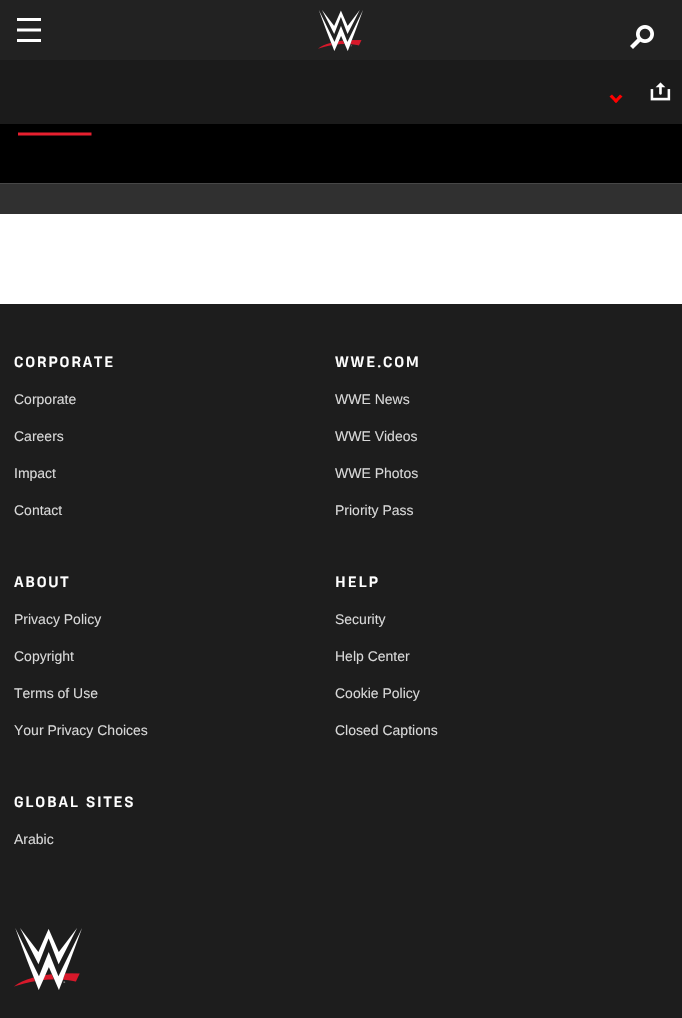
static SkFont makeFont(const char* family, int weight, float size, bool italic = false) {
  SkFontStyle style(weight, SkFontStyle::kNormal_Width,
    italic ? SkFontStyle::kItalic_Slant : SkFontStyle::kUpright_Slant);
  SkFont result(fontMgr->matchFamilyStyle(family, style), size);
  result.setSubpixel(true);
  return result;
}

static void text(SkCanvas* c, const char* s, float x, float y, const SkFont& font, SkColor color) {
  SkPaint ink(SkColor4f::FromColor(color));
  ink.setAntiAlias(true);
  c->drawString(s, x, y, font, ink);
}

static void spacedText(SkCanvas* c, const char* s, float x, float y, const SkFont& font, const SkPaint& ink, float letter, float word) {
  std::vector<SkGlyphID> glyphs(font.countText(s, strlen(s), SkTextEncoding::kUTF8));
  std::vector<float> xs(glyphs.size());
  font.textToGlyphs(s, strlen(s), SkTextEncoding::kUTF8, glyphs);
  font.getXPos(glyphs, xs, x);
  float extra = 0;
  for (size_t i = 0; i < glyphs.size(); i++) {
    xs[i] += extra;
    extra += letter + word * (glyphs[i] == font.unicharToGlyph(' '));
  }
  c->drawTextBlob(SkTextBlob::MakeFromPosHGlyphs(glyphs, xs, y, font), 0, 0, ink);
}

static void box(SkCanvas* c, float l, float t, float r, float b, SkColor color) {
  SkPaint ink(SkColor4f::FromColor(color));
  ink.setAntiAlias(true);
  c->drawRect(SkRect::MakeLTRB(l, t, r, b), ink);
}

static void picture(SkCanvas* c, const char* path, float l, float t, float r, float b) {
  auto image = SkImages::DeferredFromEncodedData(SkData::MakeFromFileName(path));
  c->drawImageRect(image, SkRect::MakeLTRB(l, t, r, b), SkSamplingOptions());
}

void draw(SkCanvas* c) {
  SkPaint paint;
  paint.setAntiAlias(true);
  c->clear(0xffffffff);
  box(c, 0, 0, 682, 60, 0xff222222);
  picture(c, "img_01.png", 17, 18, 41, 42);
  picture(c, "img_02.png", 318, 10, 363, 51);
  picture(c, "img_03.png", 630, 25, 654, 49);
  box(c, 0, 184, 682, 214, 0xff303030);
  box(c, 0, 60, 682, 124, 0xff1b1b1b);
  paint.setColor(0xffff0000);
  c->drawPath(SkPathBuilder().moveTo(620, 94.5f).lineTo(622.5f, 96.5f).lineTo(616, 103).lineTo(614, 101).close().detach(), paint);
  c->drawPath(SkPathBuilder().moveTo(612, 94.5f).lineTo(618, 101).lineTo(616, 103).lineTo(609.5f, 96.5f).close().detach(), paint);
  picture(c, "img_04.png", 650, 82, 671, 101);
  box(c, 0, 124, 682, 183, 0xff000000);
  box(c, 0, 183, 682, 184, 0xff474747);
  c->save();
  c->clipRect(SkRect::MakeLTRB(18, 131, 108, 136));
  paint.setStyle(SkPaint::kStroke_Style);
  paint.setStrokeWidth(3);
  paint.setColor(0xffe7202f);
  c->drawPath(SkPathBuilder().moveTo(1.5f, 134).lineTo(91.5f, 134).detach(), paint);
  c->restore();
  box(c, 0, 304, 682, 1018, 0xff1d1d1d);
  SkFont face1 = makeFont("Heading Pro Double", 700, 14);
  paint.setStyle(SkPaint::kFill_Style);
  paint.setColor(0xffffffff);
  spacedText(c, "CORPORATE", 14, 367, face1, paint, 1.75f, 0);
  SkFont face2 = makeFont("Liberation Sans", 400, 14);
  text(c, "Corporate", 14, 404, face2, 0xffd8d8d8);
  text(c, "Careers", 14, 441, face2, 0xffd8d8d8);
  text(c, "Impact", 14, 478, face2, 0xffd8d8d8);
  text(c, "Contact", 14, 515, face2, 0xffd8d8d8);
  spacedText(c, "WWE.COM", 335, 367, face1, paint, 1.75f, 0);
  text(c, "WWE News", 335, 404, face2, 0xffd8d8d8);
  text(c, "WWE Videos", 335, 441, face2, 0xffd8d8d8);
  text(c, "WWE Photos", 335, 478, face2, 0xffd8d8d8);
  text(c, "Priority Pass", 335, 515, face2, 0xffd8d8d8);
  spacedText(c, "ABOUT", 14, 587, face1, paint, 1.75f, 0);
  text(c, "Privacy Policy", 14, 624, face2, 0xffd8d8d8);
  text(c, "Copyright", 14, 661, face2, 0xffd8d8d8);
  text(c, "Terms of Use", 14, 698, face2, 0xffd8d8d8);
  text(c, "Your Privacy Choices", 14, 735, face2, 0xffd8d8d8);
  spacedText(c, "HELP", 335, 587, face1, paint, 1.75f, 0);
  text(c, "Security", 335, 624, face2, 0xffd8d8d8);
  text(c, "Help Center", 335, 661, face2, 0xffd8d8d8);
  text(c, "Cookie Policy", 335, 698, face2, 0xffd8d8d8);
  text(c, "Closed Captions", 335, 735, face2, 0xffd8d8d8);
  spacedText(c, "GLOBAL SITES", 14, 807, face1, paint, 1.75f, 0);
  text(c, "Arabic", 14, 844, face2, 0xffd8d8d8);
  picture(c, "img_05.png", 14, 928, 82, 990);
}
